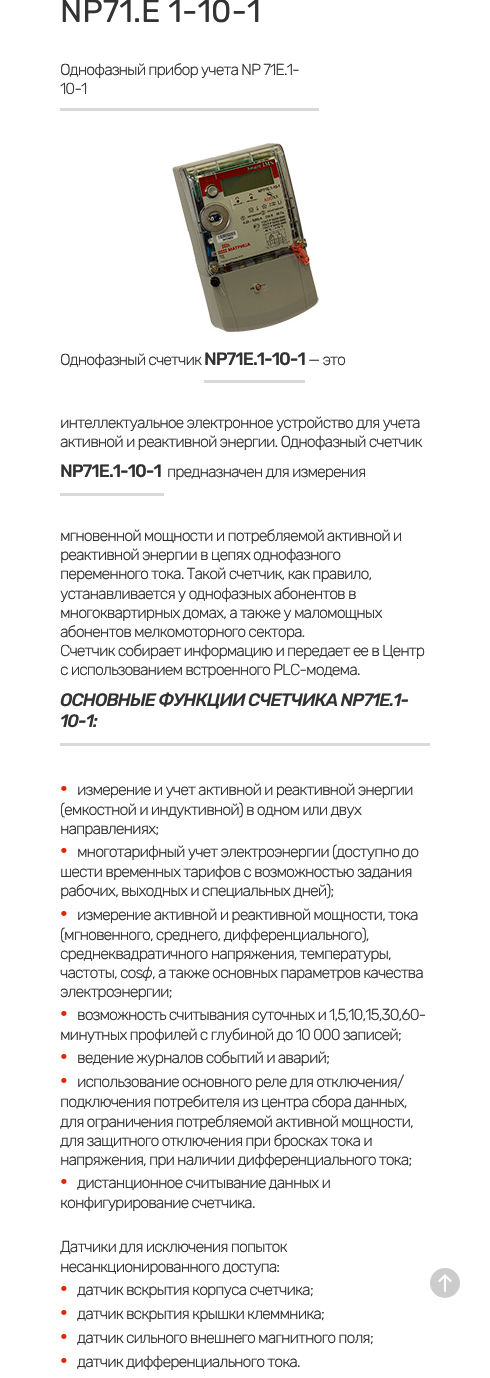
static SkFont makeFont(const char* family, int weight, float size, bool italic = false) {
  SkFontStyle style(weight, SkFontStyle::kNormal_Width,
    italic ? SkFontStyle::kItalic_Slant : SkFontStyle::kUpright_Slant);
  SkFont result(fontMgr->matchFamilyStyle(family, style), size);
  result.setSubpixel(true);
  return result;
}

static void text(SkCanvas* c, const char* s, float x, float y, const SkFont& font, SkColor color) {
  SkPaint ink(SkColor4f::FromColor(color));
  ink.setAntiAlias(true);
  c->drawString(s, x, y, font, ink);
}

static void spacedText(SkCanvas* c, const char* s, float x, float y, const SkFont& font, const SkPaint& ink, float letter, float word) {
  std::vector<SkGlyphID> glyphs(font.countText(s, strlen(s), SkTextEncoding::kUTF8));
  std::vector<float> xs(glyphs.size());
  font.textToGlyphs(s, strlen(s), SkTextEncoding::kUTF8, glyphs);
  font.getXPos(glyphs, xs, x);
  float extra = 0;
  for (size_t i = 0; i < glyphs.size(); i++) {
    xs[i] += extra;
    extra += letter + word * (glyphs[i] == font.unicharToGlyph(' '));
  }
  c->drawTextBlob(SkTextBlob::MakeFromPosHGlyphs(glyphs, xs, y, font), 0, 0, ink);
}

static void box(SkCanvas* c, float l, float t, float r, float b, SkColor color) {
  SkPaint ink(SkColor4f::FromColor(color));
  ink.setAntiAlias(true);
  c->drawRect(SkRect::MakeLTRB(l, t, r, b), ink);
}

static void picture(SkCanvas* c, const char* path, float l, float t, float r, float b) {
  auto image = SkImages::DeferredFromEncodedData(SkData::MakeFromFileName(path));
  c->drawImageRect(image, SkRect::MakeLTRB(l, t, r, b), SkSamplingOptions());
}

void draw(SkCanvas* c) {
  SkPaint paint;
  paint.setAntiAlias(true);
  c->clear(0xffffffff);
  SkFont face1 = makeFont("Rubik", 400, 32);
  text(c, "NP71.E 1-10-1", 60, 22, face1, 0xff333333);
  box(c, 60, 108, 319, 111, 0xffd9d9d9);
  SkFont face2 = makeFont("Rubik", 300, 16);
  paint.setColor(0xff333333);
  spacedText(c, "Однофазный прибор учета NP 71E.1-", 60, 75, face2, paint, -1, 0);
  spacedText(c, "10-1", 60, 94, face2, paint, -1, 0);
  picture(c, "img_01.png", 170, 141, 320, 333);
  spacedText(c, "Однофазный счетчик", 60, 365, face2, paint, -1, 0);
  box(c, 204, 380, 305, 383, 0xffd9d9d9);
  SkFont face3 = makeFont("Rubik", 500, 18);
  spacedText(c, "NP71E.1-10-1", 204, 365, face3, paint, -1, 0);
  spacedText(c, "— это", 308, 365, face2, paint, -1, 0);
  spacedText(c, "интеллектуальное электронное устройство для учета", 60, 428, face2, paint, -1, 0);
  spacedText(c, "активной и реактивной энергии. Однофазный счетчик", 60, 447, face2, paint, -1, 0);
  box(c, 60, 493, 164, 496, 0xffd9d9d9);
  spacedText(c, "NP71E.1-10-1", 60, 477, face3, paint, -1, 0);
  spacedText(c, "предназначен для измерения", 167, 477, face2, paint, -1, 0);
  spacedText(c, "мгновенной мощности и потребляемой активной и", 60, 541, face2, paint, -1, 0);
  spacedText(c, "реактивной энергии в цепях однофазного", 60, 560, face2, paint, -1, 0);
  spacedText(c, "переменного тока. Такой счетчик, как правило,", 60, 579, face2, paint, -1, 0);
  spacedText(c, "устанавливается у однофазных абонентов в", 60, 599, face2, paint, -1, 0);
  spacedText(c, "многоквартирных домах, а также у маломощных", 60, 618, face2, paint, -1, 0);
  spacedText(c, "абонентов мелкомоторного сектора.", 60, 637, face2, paint, -1, 0);
  spacedText(c, "Счетчик собирает информацию и передает ее в Центр", 60, 656, face2, paint, -1, 0);
  spacedText(c, "с использованием встроенного PLC-модема.", 60, 675, face2, paint, -1, 0);
  box(c, 60, 743, 430, 746, 0xffd9d9d9);
  SkFont face4 = makeFont("Rubik", 500, 18, true);
  spacedText(c, "ОСНОВНЫЕ ФУНКЦИИ СЧЕТЧИКА NP71E.1-", 60, 706, face4, paint, -1, 0);
  spacedText(c, "10-1:", 60, 727, face4, paint, -1, 0);
  SkFont face5 = makeFont("Rubik", 700, 20);
  paint.setColor(0xffe32301);
  spacedText(c, "•", 60, 795, face5, paint, -1, 0);
  paint.setColor(0xff333333);
  spacedText(c, "измерение и учет активной и реактивной энергии", 77, 795, face2, paint, -1, 0);
  spacedText(c, "(емкостной и индуктивной) в одном или двух", 60, 815, face2, paint, -1, 0);
  spacedText(c, "направлениях;", 60, 834, face2, paint, -1, 0);
  paint.setColor(0xffe32301);
  spacedText(c, "•", 60, 857, face5, paint, -1, 0);
  paint.setColor(0xff333333);
  spacedText(c, "многотарифный учет электроэнергии (доступно до", 77, 857, face2, paint, -1, 0);
  spacedText(c, "шести временных тарифов с возможностью задания", 60, 877, face2, paint, -1, 0);
  spacedText(c, "рабочих, выходных и специальных дней);", 60, 896, face2, paint, -1, 0);
  paint.setColor(0xffe32301);
  spacedText(c, "•", 60, 920, face5, paint, -1, 0);
  paint.setColor(0xff333333);
  spacedText(c, "измерение активной и реактивной мощности, тока", 77, 920, face2, paint, -1, 0);
  spacedText(c, "(мгновенного, среднего, дифференциального),", 60, 940, face2, paint, -1, 0);
  spacedText(c, "среднеквадратичного напряжения, температуры,", 60, 959, face2, paint, -1, 0);
  spacedText(c, "частоты, cos", 60, 978, face2, paint, -1, 0);
  SkFont face6 = makeFont("Rubik", 300, 16, true);
  spacedText(c, "ф", 142, 978, face6, paint, -1, 0);
  spacedText(c, ", а также основных параметров качества", 152, 978, face2, paint, -1, 0);
  spacedText(c, "электроэнергии;", 60, 997, face2, paint, -1, 0);
  paint.setColor(0xffe32301);
  spacedText(c, "•", 60, 1020, face5, paint, -1, 0);
  paint.setColor(0xff333333);
  spacedText(c, "возможность считывания суточных и 1,5,10,15,30,60-", 77, 1020, face2, paint, -1, 0);
  spacedText(c, "минутных профилей с глубиной до 10 000 записей;", 60, 1040, face2, paint, -1, 0);
  paint.setColor(0xffe32301);
  spacedText(c, "•", 60, 1063, face5, paint, -1, 0);
  paint.setColor(0xff333333);
  spacedText(c, "ведение журналов событий и аварий;", 77, 1063, face2, paint, -1, 0);
  paint.setColor(0xffe32301);
  spacedText(c, "•", 60, 1087, face5, paint, -1, 0);
  paint.setColor(0xff333333);
  spacedText(c, "использование основного реле для отключения/", 77, 1087, face2, paint, -1, 0);
  spacedText(c, "подключения потребителя из центра сбора данных,", 60, 1107, face2, paint, -1, 0);
  spacedText(c, "для ограничения потребляемой активной мощности,", 60, 1127, face2, paint, -1, 0);
  spacedText(c, "для защитного отключения при бросках тока и", 60, 1146, face2, paint, -1, 0);
  spacedText(c, "напряжения, при наличии дифференциального тока;", 60, 1165, face2, paint, -1, 0);
  paint.setColor(0xffe32301);
  spacedText(c, "•", 60, 1188, face5, paint, -1, 0);
  paint.setColor(0xff333333);
  spacedText(c, "дистанционное считывание данных и", 77, 1188, face2, paint, -1, 0);
  spacedText(c, "конфигурирование счетчика.", 60, 1208, face2, paint, -1, 0);
  spacedText(c, "Датчики для исключения попыток", 60, 1252, face2, paint, -1, 0);
  spacedText(c, "несанкционированного доступа:", 60, 1272, face2, paint, -1, 0);
  paint.setColor(0xffe32301);
  spacedText(c, "•", 60, 1295, face5, paint, -1, 0);
  paint.setColor(0xff333333);
  spacedText(c, "датчик вскрытия корпуса счетчика;", 77, 1295, face2, paint, -1, 0);
  paint.setColor(0xffe32301);
  spacedText(c, "•", 60, 1319, face5, paint, -1, 0);
  paint.setColor(0xff333333);
  spacedText(c, "датчик вскрытия крышки клеммника;", 77, 1319, face2, paint, -1, 0);
  paint.setColor(0xffe32301);
  spacedText(c, "•", 60, 1343, face5, paint, -1, 0);
  paint.setColor(0xff333333);
  spacedText(c, "датчик сильного внешнего магнитного поля;", 77, 1343, face2, paint, -1, 0);
  paint.setColor(0xffe32301);
  spacedText(c, "•", 60, 1367, face5, paint, -1, 0);
  paint.setColor(0xff333333);
  spacedText(c, "датчик дифференциального тока.", 77, 1367, face2, paint, -1, 0);
  paint.setColor(0xffcccccc);
  c->drawCircle(445, 1283, 15, paint);
  picture(c, "img_02.png", 438, 1274, 452, 1292);
}
